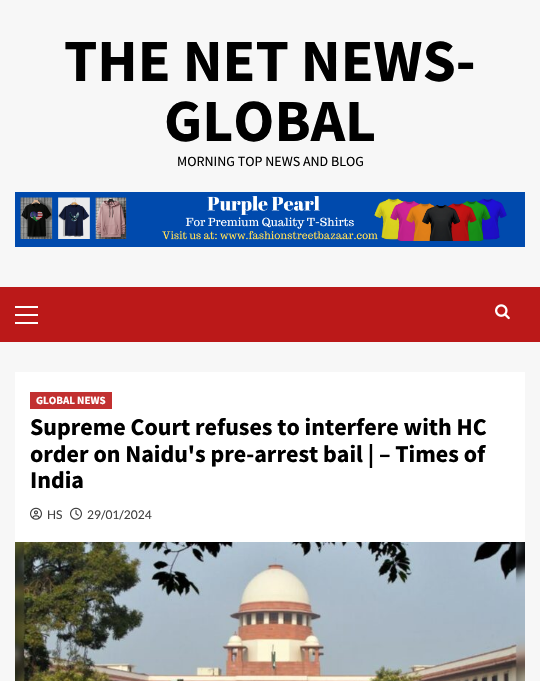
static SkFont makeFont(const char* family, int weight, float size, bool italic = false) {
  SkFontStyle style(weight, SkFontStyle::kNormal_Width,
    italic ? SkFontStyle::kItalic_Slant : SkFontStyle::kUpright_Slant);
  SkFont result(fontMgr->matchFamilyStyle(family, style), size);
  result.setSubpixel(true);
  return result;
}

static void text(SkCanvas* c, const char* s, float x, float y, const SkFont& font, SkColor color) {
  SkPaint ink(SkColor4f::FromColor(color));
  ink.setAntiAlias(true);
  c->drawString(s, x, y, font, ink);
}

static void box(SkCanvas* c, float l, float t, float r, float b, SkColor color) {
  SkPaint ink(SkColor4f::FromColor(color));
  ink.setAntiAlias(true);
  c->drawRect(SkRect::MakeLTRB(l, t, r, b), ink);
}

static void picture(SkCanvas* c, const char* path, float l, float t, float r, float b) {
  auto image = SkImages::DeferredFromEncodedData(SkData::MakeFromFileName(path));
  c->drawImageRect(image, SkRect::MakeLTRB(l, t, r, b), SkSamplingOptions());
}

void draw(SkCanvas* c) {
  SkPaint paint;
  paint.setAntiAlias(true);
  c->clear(0xfff7f7f7);
  SkFont face1 = makeFont("Source Sans Pro", 700, 60);
  text(c, "THE NET NEWS-", 64, 81, face1, 0xff000000);
  text(c, "GLOBAL", 164, 141, face1, 0xff000000);
  SkFont face2 = makeFont("Source Sans Pro", 400, 14);
  text(c, "MORNING TOP NEWS AND BLOG", 177, 166, face2, 0xff000000);
  picture(c, "img_01.png", 15, 192, 525, 247);
  box(c, 0, 287, 540, 342, 0xffbb1919);
  box(c, 15, 314, 38, 316, 0xffffffff);
  box(c, 15, 306, 38, 308, 0xffffffff);
  box(c, 15, 322, 38, 324, 0xffffffff);
  picture(c, "img_02.png", 495, 304, 510, 320);
  box(c, 15, 372, 525, 542, 0xffffffff);
  box(c, 30, 392, 112, 409, 0xffc23030);
  SkFont face3 = makeFont("Source Sans Pro", 700, 11);
  text(c, "GLOBAL NEWS", 36, 404, face3, 0xffffffff);
  SkFont face4 = makeFont("Source Sans Pro", 700, 24);
  text(c, "Supreme Court refuses to interfere with HC", 30, 435, face4, 0xff000000);
  text(c, "order on Naidu's pre-arrest bail | – Times of", 30, 462, face4, 0xff000000);
  text(c, "India", 30, 488, face4, 0xff000000);
  picture(c, "img_03.png", 30, 507, 42, 520);
  SkFont face5 = makeFont("Lato", 400, 12);
  text(c, "HS", 47, 519, face5, 0xff404040);
  picture(c, "img_04.png", 70, 507, 82, 520);
  text(c, "29/01/2024", 87, 519, face5, 0xff404040);
  picture(c, "img_05.png", 15, 542, 525, 681);
}
